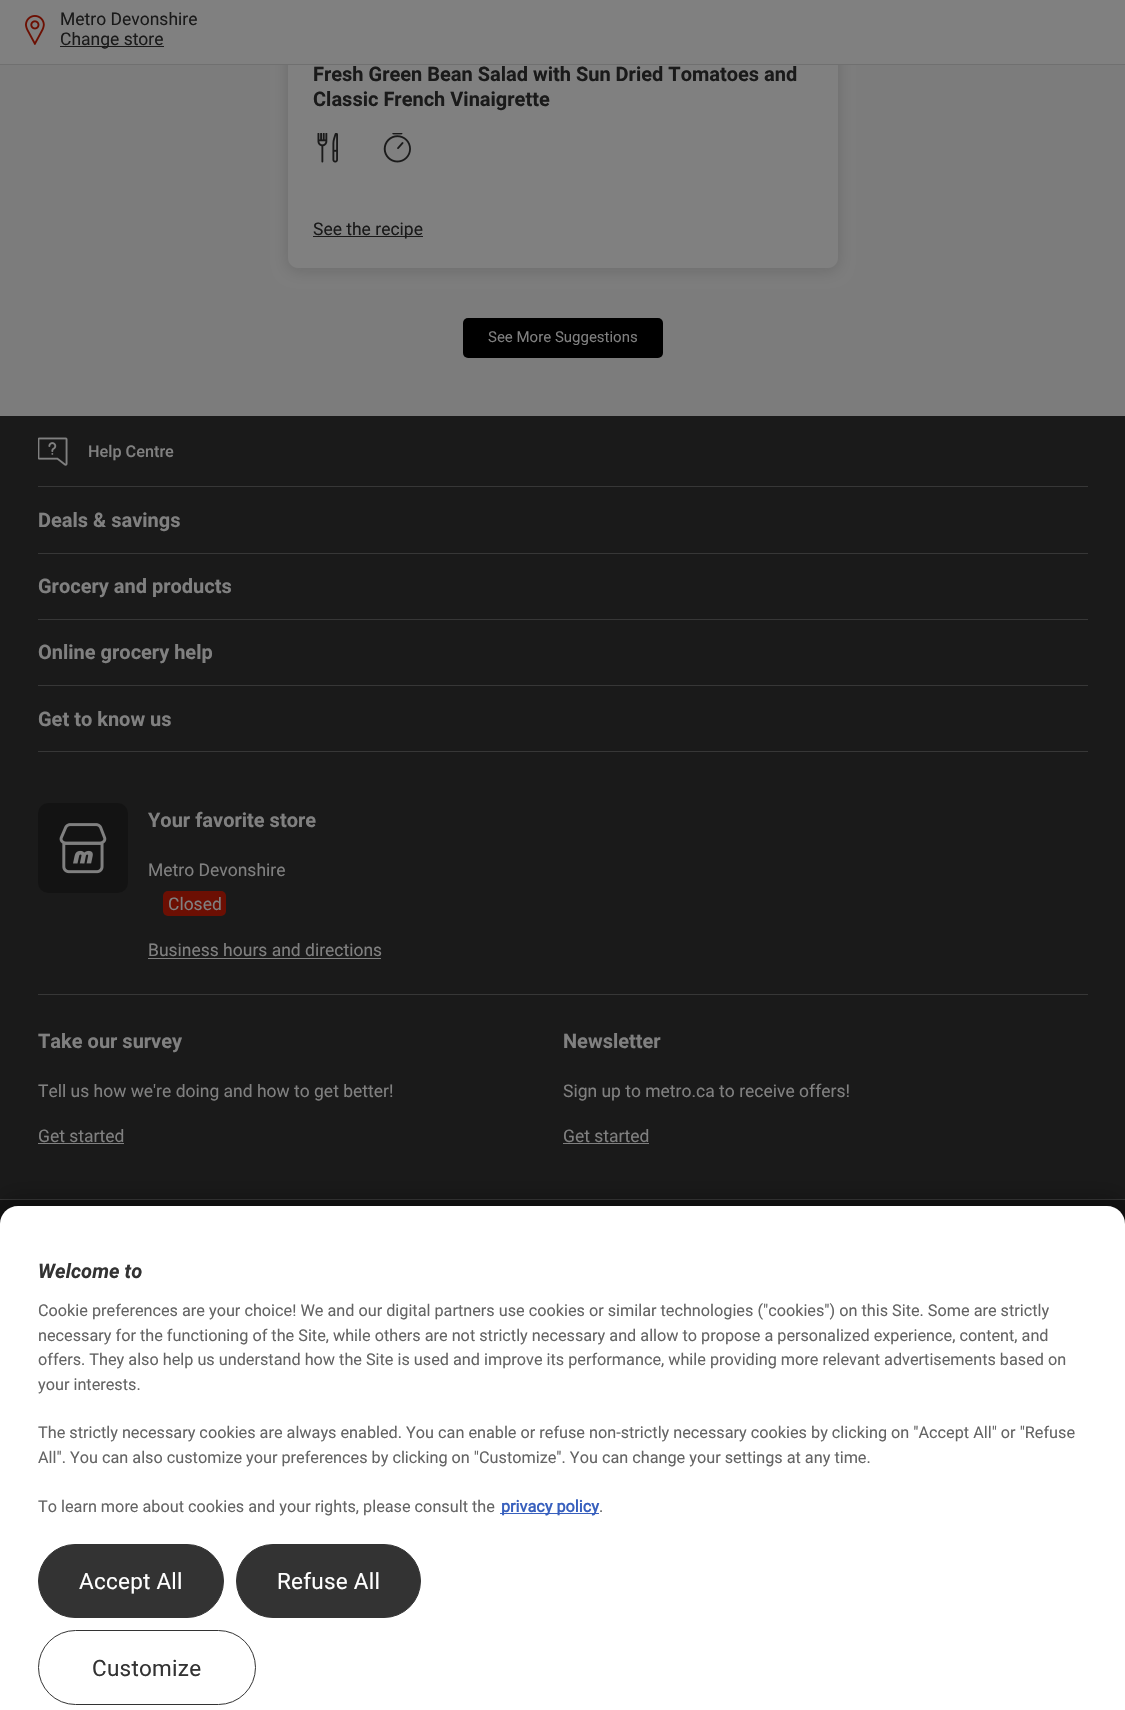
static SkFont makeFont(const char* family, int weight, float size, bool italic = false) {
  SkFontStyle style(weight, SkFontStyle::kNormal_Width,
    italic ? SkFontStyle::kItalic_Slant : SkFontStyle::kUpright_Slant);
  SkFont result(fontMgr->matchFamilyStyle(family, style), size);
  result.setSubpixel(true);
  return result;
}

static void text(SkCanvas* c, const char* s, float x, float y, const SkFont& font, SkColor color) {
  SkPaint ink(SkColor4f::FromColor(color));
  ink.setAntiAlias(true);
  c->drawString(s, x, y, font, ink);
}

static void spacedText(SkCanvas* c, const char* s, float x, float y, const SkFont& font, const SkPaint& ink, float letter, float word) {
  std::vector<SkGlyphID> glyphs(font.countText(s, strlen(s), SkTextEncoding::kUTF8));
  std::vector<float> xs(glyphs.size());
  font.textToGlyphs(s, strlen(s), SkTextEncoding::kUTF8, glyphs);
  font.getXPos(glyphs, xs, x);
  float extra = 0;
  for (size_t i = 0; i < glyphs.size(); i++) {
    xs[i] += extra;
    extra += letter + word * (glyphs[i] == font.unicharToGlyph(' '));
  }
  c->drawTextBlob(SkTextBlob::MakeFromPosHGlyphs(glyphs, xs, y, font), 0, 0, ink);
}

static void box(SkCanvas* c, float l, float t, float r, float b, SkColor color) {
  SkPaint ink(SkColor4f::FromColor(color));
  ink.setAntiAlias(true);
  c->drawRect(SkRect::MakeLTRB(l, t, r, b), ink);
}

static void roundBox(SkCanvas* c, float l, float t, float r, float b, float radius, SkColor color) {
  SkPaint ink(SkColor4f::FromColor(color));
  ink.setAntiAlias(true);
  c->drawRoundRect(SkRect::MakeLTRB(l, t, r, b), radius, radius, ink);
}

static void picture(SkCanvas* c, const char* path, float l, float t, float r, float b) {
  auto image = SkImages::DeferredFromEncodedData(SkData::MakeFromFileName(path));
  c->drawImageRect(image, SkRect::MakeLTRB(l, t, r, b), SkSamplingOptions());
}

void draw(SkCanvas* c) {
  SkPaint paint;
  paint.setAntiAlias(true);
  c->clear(0xff7c7c7c);
  paint.setColor(0x240d0d0d);
  paint.setMaskFilter(SkMaskFilter::MakeBlur(kNormal_SkBlurStyle, 7.5f));
  c->drawRoundRect(SkRect::MakeLTRB(288, -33, 838, 271), 10, 10, paint);
  paint.setMaskFilter(nullptr);
  paint.setColor(0xff808080);
  c->drawPath(SkPathBuilder().moveTo(288, 6).lineTo(838, 6).lineTo(838, 258).cubicTo(838, 263.5f, 833.5f, 268, 828, 268).lineTo(298, 268).cubicTo(292.5f, 268, 288, 263.5f, 288, 258).close().detach(), paint);
  box(c, 0, 0, 1125, 64, 0xff808080);
  box(c, 0, 64, 1125, 65, 0xff707070);
  picture(c, "img_01.png", 25, 15, 45, 45);
  SkFont face1 = makeFont("Roboto", 400, 17.5f);
  text(c, "Metro Devonshire", 60, 25, face1, 0xff1a1a1a);
  box(c, 60, 46, 164, 47, 0xff1a1a1a);
  text(c, "Change store", 60, 45, face1, 0xff1a1a1a);
  SkFont face2 = makeFont("Roboto", 700, 20);
  text(c, "Fresh Green Bean Salad with Sun Dried Tomatoes and", 313, 81, face2, 0xff1a1a1a);
  text(c, "Classic French Vinaigrette", 313, 106, face2, 0xff1a1a1a);
  picture(c, "img_02.png", 317, 133, 338, 163);
  picture(c, "img_03.png", 383, 133, 411, 163);
  box(c, 313, 236, 423, 237, 0xff1a1a1a);
  text(c, "See the recipe", 313, 235, face1, 0xff1a1a1a);
  roundBox(c, 463, 318, 663, 358, 5, 0xff000000);
  SkFont face3 = makeFont("Roboto", 400, 15);
  text(c, "See More Suggestions", 488, 342, face3, 0xff808080);
  box(c, 0, 416, 1125, 1199, 0xff1a1a1a);
  box(c, 38, 486, 1088, 487, 0xff373737);
  picture(c, "img_04.png", 38, 437, 68, 466);
  SkFont face4 = makeFont("Roboto", 500, 16.25f);
  text(c, "Help Centre", 88, 457, face4, 0xff808080);
  box(c, 38, 553, 1088, 554, 0xff373737);
  text(c, "Deals & savings", 38, 527, face2, 0xff808080);
  box(c, 38, 619, 1088, 620, 0xff373737);
  text(c, "Grocery and products", 38, 593, face2, 0xff808080);
  box(c, 38, 685, 1088, 686, 0xff373737);
  text(c, "Online grocery help", 38, 659, face2, 0xff808080);
  box(c, 38, 751, 1088, 752, 0xff373737);
  text(c, "Get to know us", 38, 726, face2, 0xff808080);
  box(c, 38, 994, 1088, 995, 0xff373737);
  roundBox(c, 38, 803, 128, 893, 10, 0xff131313);
  picture(c, "img_05.png", 59, 823, 107, 874);
  text(c, "Your favorite store", 148, 827, face2, 0xff808080);
  text(c, "Metro Devonshire", 148, 876, face1, 0xff808080);
  roundBox(c, 163, 891, 226, 916, 5, 0xff6c0f03);
  text(c, "Closed", 168, 910, face1, 0xff808080);
  text(c, "Business hours and directions", 148, 956, face1, 0xff808080);
  box(c, 148, 958, 381, 959, 0xff808080);
  text(c, "Take our survey", 38, 1048, face2, 0xff808080);
  text(c, "Tell us how we're doing and how to get better!", 38, 1097, face1, 0xff808080);
  text(c, "Get started", 38, 1142, face1, 0xff808080);
  box(c, 38, 1143, 124, 1144, 0xff808080);
  text(c, "Newsletter", 563, 1048, face2, 0xff808080);
  text(c, "Sign up to metro.ca to receive offers!", 563, 1097, face1, 0xff808080);
  text(c, "Get started", 563, 1142, face1, 0xff808080);
  box(c, 563, 1143, 649, 1144, 0xff808080);
  box(c, 0, 1200, 1125, 1224, 0xff131313);
  box(c, 0, 1199, 1125, 1200, 0xff373737);
  paint.setColor(0x3d000000);
  paint.setMaskFilter(SkMaskFilter::MakeBlur(kNormal_SkBlurStyle, 10));
  c->drawRoundRect(SkRect::MakeLTRB(0, 1196, 1125, 1700), 18, 18, paint);
  paint.setMaskFilter(nullptr);
  paint.setColor(0xffffffff);
  c->drawPath(SkPathBuilder().moveTo(18, 1206).lineTo(1107, 1206).cubicTo(1117, 1206, 1125, 1214, 1125, 1224).lineTo(1125, 1710).lineTo(0, 1710).lineTo(0, 1224).cubicTo(0, 1214, 8, 1206, 18, 1206).close().detach(), paint);
  SkFont face5 = makeFont("Roboto", 700, 20, true);
  text(c, "Welcome to", 38, 1278, face5, 0xff333333);
  SkFont face6 = makeFont("Roboto", 400, 16.25f);
  text(c, "Cookie preferences are your choice! We and our digital partners use cookies or similar technologies (\"cookies\") on this Site. Some are strictly", 38, 1316, face6, 0xff646464);
  text(c, "necessary for the functioning of the Site, while others are not strictly necessary and allow to propose a personalized experience, content, and", 38, 1341, face6, 0xff646464);
  text(c, "offers. They also help us understand how the Site is used and improve its performance, while providing more relevant advertisements based on", 38, 1365, face6, 0xff646464);
  text(c, "your interests.", 38, 1390, face6, 0xff646464);
  text(c, "The strictly necessary cookies are always enabled. You can enable or refuse non-strictly necessary cookies by clicking on \"Accept All\" or \"Refuse", 38, 1438, face6, 0xff646464);
  text(c, "All\". You can also customize your preferences by clicking on \"Customize\". You can change your settings at any time.", 38, 1463, face6, 0xff646464);
  text(c, "To learn more about cookies and your rights, please consult the", 38, 1512, face6, 0xff646464);
  box(c, 500, 1513, 599, 1514, 0xff3860be);
  SkFont face7 = makeFont("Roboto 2", 700, 16.25f);
  text(c, "privacy policy", 501, 1512, face7, 0xff3860be);
  text(c, ".", 599, 1512, face6, 0xff646464);
  paint.setColor(0xff333333);
  c->drawRoundRect(SkRect::MakeLTRB(38.5f, 1544.5f, 223.5f, 1617.5f), 36.5f, 36.5f, paint);
  paint.setStyle(SkPaint::kStroke_Style);
  paint.setStrokeWidth(1);
  c->drawRoundRect(SkRect::MakeLTRB(38.5f, 1544.5f, 223.5f, 1617.5f), 36.5f, 36.5f, paint);
  SkFont face8 = makeFont("Roboto", 400, 22.5f);
  paint.setStyle(SkPaint::kFill_Style);
  paint.setColor(0xffffffff);
  spacedText(c, "Accept All", 79, 1589, face8, paint, 0.25f, 0);
  paint.setColor(0xff333333);
  c->drawRoundRect(SkRect::MakeLTRB(236.5f, 1544.5f, 420.5f, 1617.5f), 36.5f, 36.5f, paint);
  paint.setStyle(SkPaint::kStroke_Style);
  c->drawRoundRect(SkRect::MakeLTRB(236.5f, 1544.5f, 420.5f, 1617.5f), 36.5f, 36.5f, paint);
  paint.setStyle(SkPaint::kFill_Style);
  paint.setColor(0xffffffff);
  spacedText(c, "Refuse All", 277, 1589, face8, paint, 0.25f, 0);
  paint.setStyle(SkPaint::kStroke_Style);
  paint.setColor(0xff333333);
  c->drawRoundRect(SkRect::MakeLTRB(38.5f, 1630.5f, 255.5f, 1704.5f), 37, 37, paint);
  paint.setStyle(SkPaint::kFill_Style);
  spacedText(c, "Customize", 92, 1676, face8, paint, 0.25f, 0);
}
